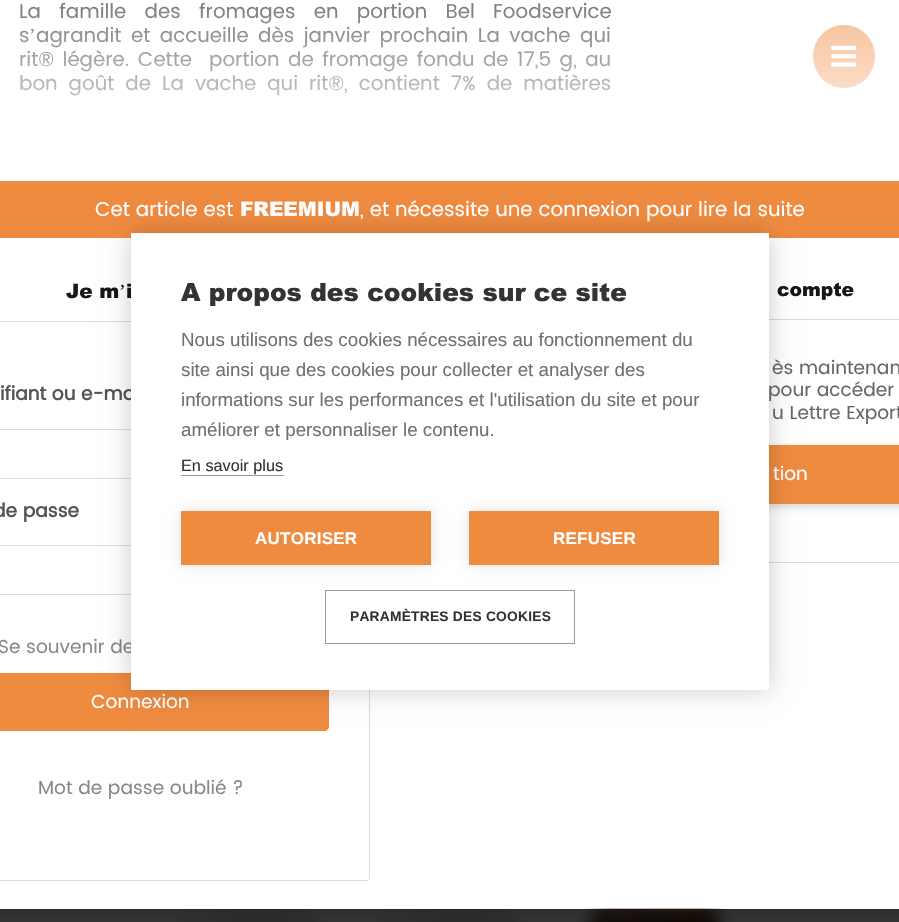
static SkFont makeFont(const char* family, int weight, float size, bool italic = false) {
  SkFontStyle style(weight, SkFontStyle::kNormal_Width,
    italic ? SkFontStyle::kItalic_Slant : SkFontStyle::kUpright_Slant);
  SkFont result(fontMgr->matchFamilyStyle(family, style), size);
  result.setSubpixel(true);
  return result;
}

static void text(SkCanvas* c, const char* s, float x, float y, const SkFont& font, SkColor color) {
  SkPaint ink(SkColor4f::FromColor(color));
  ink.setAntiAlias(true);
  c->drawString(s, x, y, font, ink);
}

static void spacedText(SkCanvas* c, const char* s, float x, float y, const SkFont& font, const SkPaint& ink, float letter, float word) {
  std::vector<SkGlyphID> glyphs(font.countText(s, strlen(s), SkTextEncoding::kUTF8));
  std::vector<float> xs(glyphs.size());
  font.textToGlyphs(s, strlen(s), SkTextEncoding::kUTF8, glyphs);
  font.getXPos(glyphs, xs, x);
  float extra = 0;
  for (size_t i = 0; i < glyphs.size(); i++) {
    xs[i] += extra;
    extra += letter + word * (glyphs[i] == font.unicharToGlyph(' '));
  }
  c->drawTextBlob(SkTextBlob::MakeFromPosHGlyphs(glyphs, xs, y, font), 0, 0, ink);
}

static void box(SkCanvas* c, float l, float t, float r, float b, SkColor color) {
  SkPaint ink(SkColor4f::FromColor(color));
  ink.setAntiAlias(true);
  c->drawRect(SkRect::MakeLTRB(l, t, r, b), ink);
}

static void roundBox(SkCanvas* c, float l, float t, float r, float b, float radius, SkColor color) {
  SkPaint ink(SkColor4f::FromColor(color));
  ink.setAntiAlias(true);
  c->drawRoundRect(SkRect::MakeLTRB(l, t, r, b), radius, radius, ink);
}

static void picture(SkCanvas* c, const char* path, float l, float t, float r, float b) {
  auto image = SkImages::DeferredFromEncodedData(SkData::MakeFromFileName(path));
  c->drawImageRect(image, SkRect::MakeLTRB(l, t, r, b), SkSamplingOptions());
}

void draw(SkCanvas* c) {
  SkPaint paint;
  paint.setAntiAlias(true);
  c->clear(0xffffffff);
  SkFont face1 = makeFont("Poppins", 400, 20);
  paint.setColor(0xff171717);
  spacedText(c, "La famille des fromages en portion Bel Foodservice", 19, 18, face1, paint, 0, 12.25f);
  text(c, "s", 19, 42, face1, 0xff171717);
  SkFont face2 = makeFont("Liberation Serif", 400, 20);
  text(c, "’", 29, 42, face2, 0xff171717);
  spacedText(c, "agrandit et accueille dès janvier prochain La vache qui", 36, 42, face1, paint, 0, 3.5f);
  spacedText(c, "rit® légère. Cette  portion de fromage fondu de 17,5 g, au", 19, 66, face1, paint, 0, 2.5f);
  spacedText(c, "bon goût de La vache qui rit®, contient 7% de matières", 19, 90, face1, paint, 0, 5);
  roundBox(c, 813, 25, 875, 88, 31, 0xffef8b3f);
  picture(c, "img_02.png", 831, 45, 856, 67);
  {
    const SkColor colors[] = {0x00ffffff, 0x08ffffff, 0xffffffff, 0xffffffff};
    const float stops[] = {0, 0.01f, 0.31f, 1};
    const SkPoint ends[] = {{450, -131}, {450, 869}};
    paint.setShader(SkGradientShader::MakeLinear(ends, colors, stops, 4, SkTileMode::kClamp));
    paint.setAlpha(255);
  }
  c->drawRect(SkRect::MakeLTRB(19, 2, 875, 96), paint);
  box(c, 0, 181, 899, 238, 0xffef8b3f);
  text(c, "Cet article est", 95, 216, face1, 0xffffffff);
  SkFont face3 = makeFont("Arial", 900, 20);
  text(c, "FREEMIUM", 240, 216, face3, 0xffffffff);
  text(c, ", et nécessite une connexion pour lire la suite", 360, 216, face1, 0xffffffff);
  text(c, "Je m i", 66, 298, face3, 0xff171717);
  text(c, "’", 119, 298, face2, 0xff171717);
  paint.setStyle(SkPaint::kStroke_Style);
  paint.setStrokeWidth(1);
  paint.setShader(nullptr);
  paint.setColor(0xffdadada);
  c->drawRoundRect(SkRect::MakeLTRB(-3.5f, 321.5f, 369.5f, 880.5f), 2, 2, paint);
  SkFont face4 = makeFont("Poppins", 700, 18.75f);
  text(c, "ifiant ou e-ma", 0, 400, face4, 0xff555555);
  paint.setColor(0xffdddddd);
  c->drawRect(SkRect::MakeLTRB(-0.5f, 429.5f, 328.5f, 478.5f), paint);
  text(c, "de passe", -7, 517, face4, 0xff555555);
  c->drawRect(SkRect::MakeLTRB(-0.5f, 545.5f, 328.5f, 594.5f), paint);
  SkFont face5 = makeFont("Poppins", 400, 18.75f);
  text(c, "Se souvenir de", -2, 653, face5, 0xff888888);
  paint.setStyle(SkPaint::kFill_Style);
  paint.setColor(0xffef8b3f);
  c->drawPath(SkPathBuilder().moveTo(0, 673).lineTo(324, 673).cubicTo(327, 673, 329, 675, 329, 678).lineTo(329, 726).cubicTo(329, 729, 327, 731, 324, 731).lineTo(0, 731).close().detach(), paint);
  text(c, "Connexion", 91, 708, face5, 0xffffffff);
  text(c, "Mot de passe oublié ?", 38, 794, face5, 0xff888888);
  SkFont face6 = makeFont("Arial", 900, 18.75f);
  text(c, "compte", 777, 296, face6, 0xff171717);
  paint.setStyle(SkPaint::kStroke_Style);
  paint.setColor(0xffdadada);
  c->drawRect(SkRect::MakeLTRB(531.5f, 319.5f, 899.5f, 562.5f), paint);
  text(c, "ès maintenan", 772, 374, face5, 0xff666666);
  text(c, "pour accéder", 768, 396, face5, 0xff666666);
  text(c, "u Lettre Export", 772, 419, face5, 0xff666666);
  paint.setStyle(SkPaint::kFill_Style);
  paint.setColor(0x14000000);
  paint.setMaskFilter(SkMaskFilter::MakeBlur(kNormal_SkBlurStyle, 2));
  c->drawRoundRect(SkRect::MakeLTRB(570, 446, 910, 505), 5, 5, paint);
  paint.setMaskFilter(nullptr);
  paint.setColor(0x1c32325d);
  paint.setMaskFilter(SkMaskFilter::MakeBlur(kNormal_SkBlurStyle, 4));
  c->drawRoundRect(SkRect::MakeLTRB(570, 450, 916, 509), 5, 5, paint);
  paint.setMaskFilter(nullptr);
  box(c, 769, 445, 899, 504, 0xffef8b3f);
  text(c, "tion", 773, 480, face5, 0xffffffff);
  box(c, 0, 909, 899, 922, 0xffc0c0c0);
  picture(c, "img_01.png", 0, 908, 899, 922);
  box(c, 0, 909, 899, 922, 0xcc000000);
  paint.setColor(0x33000000);
  paint.setMaskFilter(SkMaskFilter::MakeBlur(kNormal_SkBlurStyle, 12.5f));
  c->drawRect(SkRect::MakeLTRB(131, 233, 769, 690), paint);
  paint.setMaskFilter(nullptr);
  box(c, 131, 233, 769, 690, 0xffffffff);
  SkFont face7 = makeFont("Arial", 900, 25);
  text(c, "A propos des cookies sur ce site", 181, 301, face7, 0xff333333);
  SkFont face8 = makeFont("Liberation Sans", 400, 18.75f);
  text(c, "Nous utilisons des cookies nécessaires au fonctionnement du", 181, 346, face8, 0xff707070);
  text(c, "site ainsi que des cookies pour collecter et analyser des", 181, 376, face8, 0xff707070);
  text(c, "informations sur les performances et l'utilisation du site et pour", 181, 406, face8, 0xff707070);
  text(c, "améliorer et personnaliser le contenu.", 181, 436, face8, 0xff707070);
  SkFont face9 = makeFont("Liberation Sans", 400, 16.25f);
  text(c, "En savoir plus", 181, 471, face9, 0xff333333);
  box(c, 181, 475, 284, 476, 0xff999999);
  paint.setColor(0x1f000000);
  paint.setMaskFilter(SkMaskFilter::MakeBlur(kNormal_SkBlurStyle, 6));
  c->drawRect(SkRect::MakeLTRB(181, 511, 431, 565), paint);
  paint.setMaskFilter(nullptr);
  box(c, 181, 511, 431, 565, 0xffef8b3f);
  SkFont face10 = makeFont("Liberation Sans", 700, 17);
  paint.setColor(0xffffffff);
  spacedText(c, "AUTORISER", 255, 544, face10, paint, 0.25f, 0);
  paint.setColor(0x1f000000);
  paint.setMaskFilter(SkMaskFilter::MakeBlur(kNormal_SkBlurStyle, 6));
  c->drawRect(SkRect::MakeLTRB(469, 511, 719, 565), paint);
  paint.setMaskFilter(nullptr);
  box(c, 469, 511, 719, 565, 0xffef8b3f);
  paint.setColor(0xffffffff);
  spacedText(c, "REFUSER", 553, 544, face10, paint, 0.25f, 0);
  paint.setStyle(SkPaint::kStroke_Style);
  paint.setColor(0xff999999);
  c->drawRect(SkRect::MakeLTRB(325.5f, 590.5f, 574.5f, 643.5f), paint);
  SkFont face11 = makeFont("Liberation Sans", 700, 13.75f);
  paint.setStyle(SkPaint::kFill_Style);
  paint.setColor(0xff333333);
  spacedText(c, "PARAMÈTRES DES COOKIES", 350, 621, face11, paint, 0.25f, 0);
}
